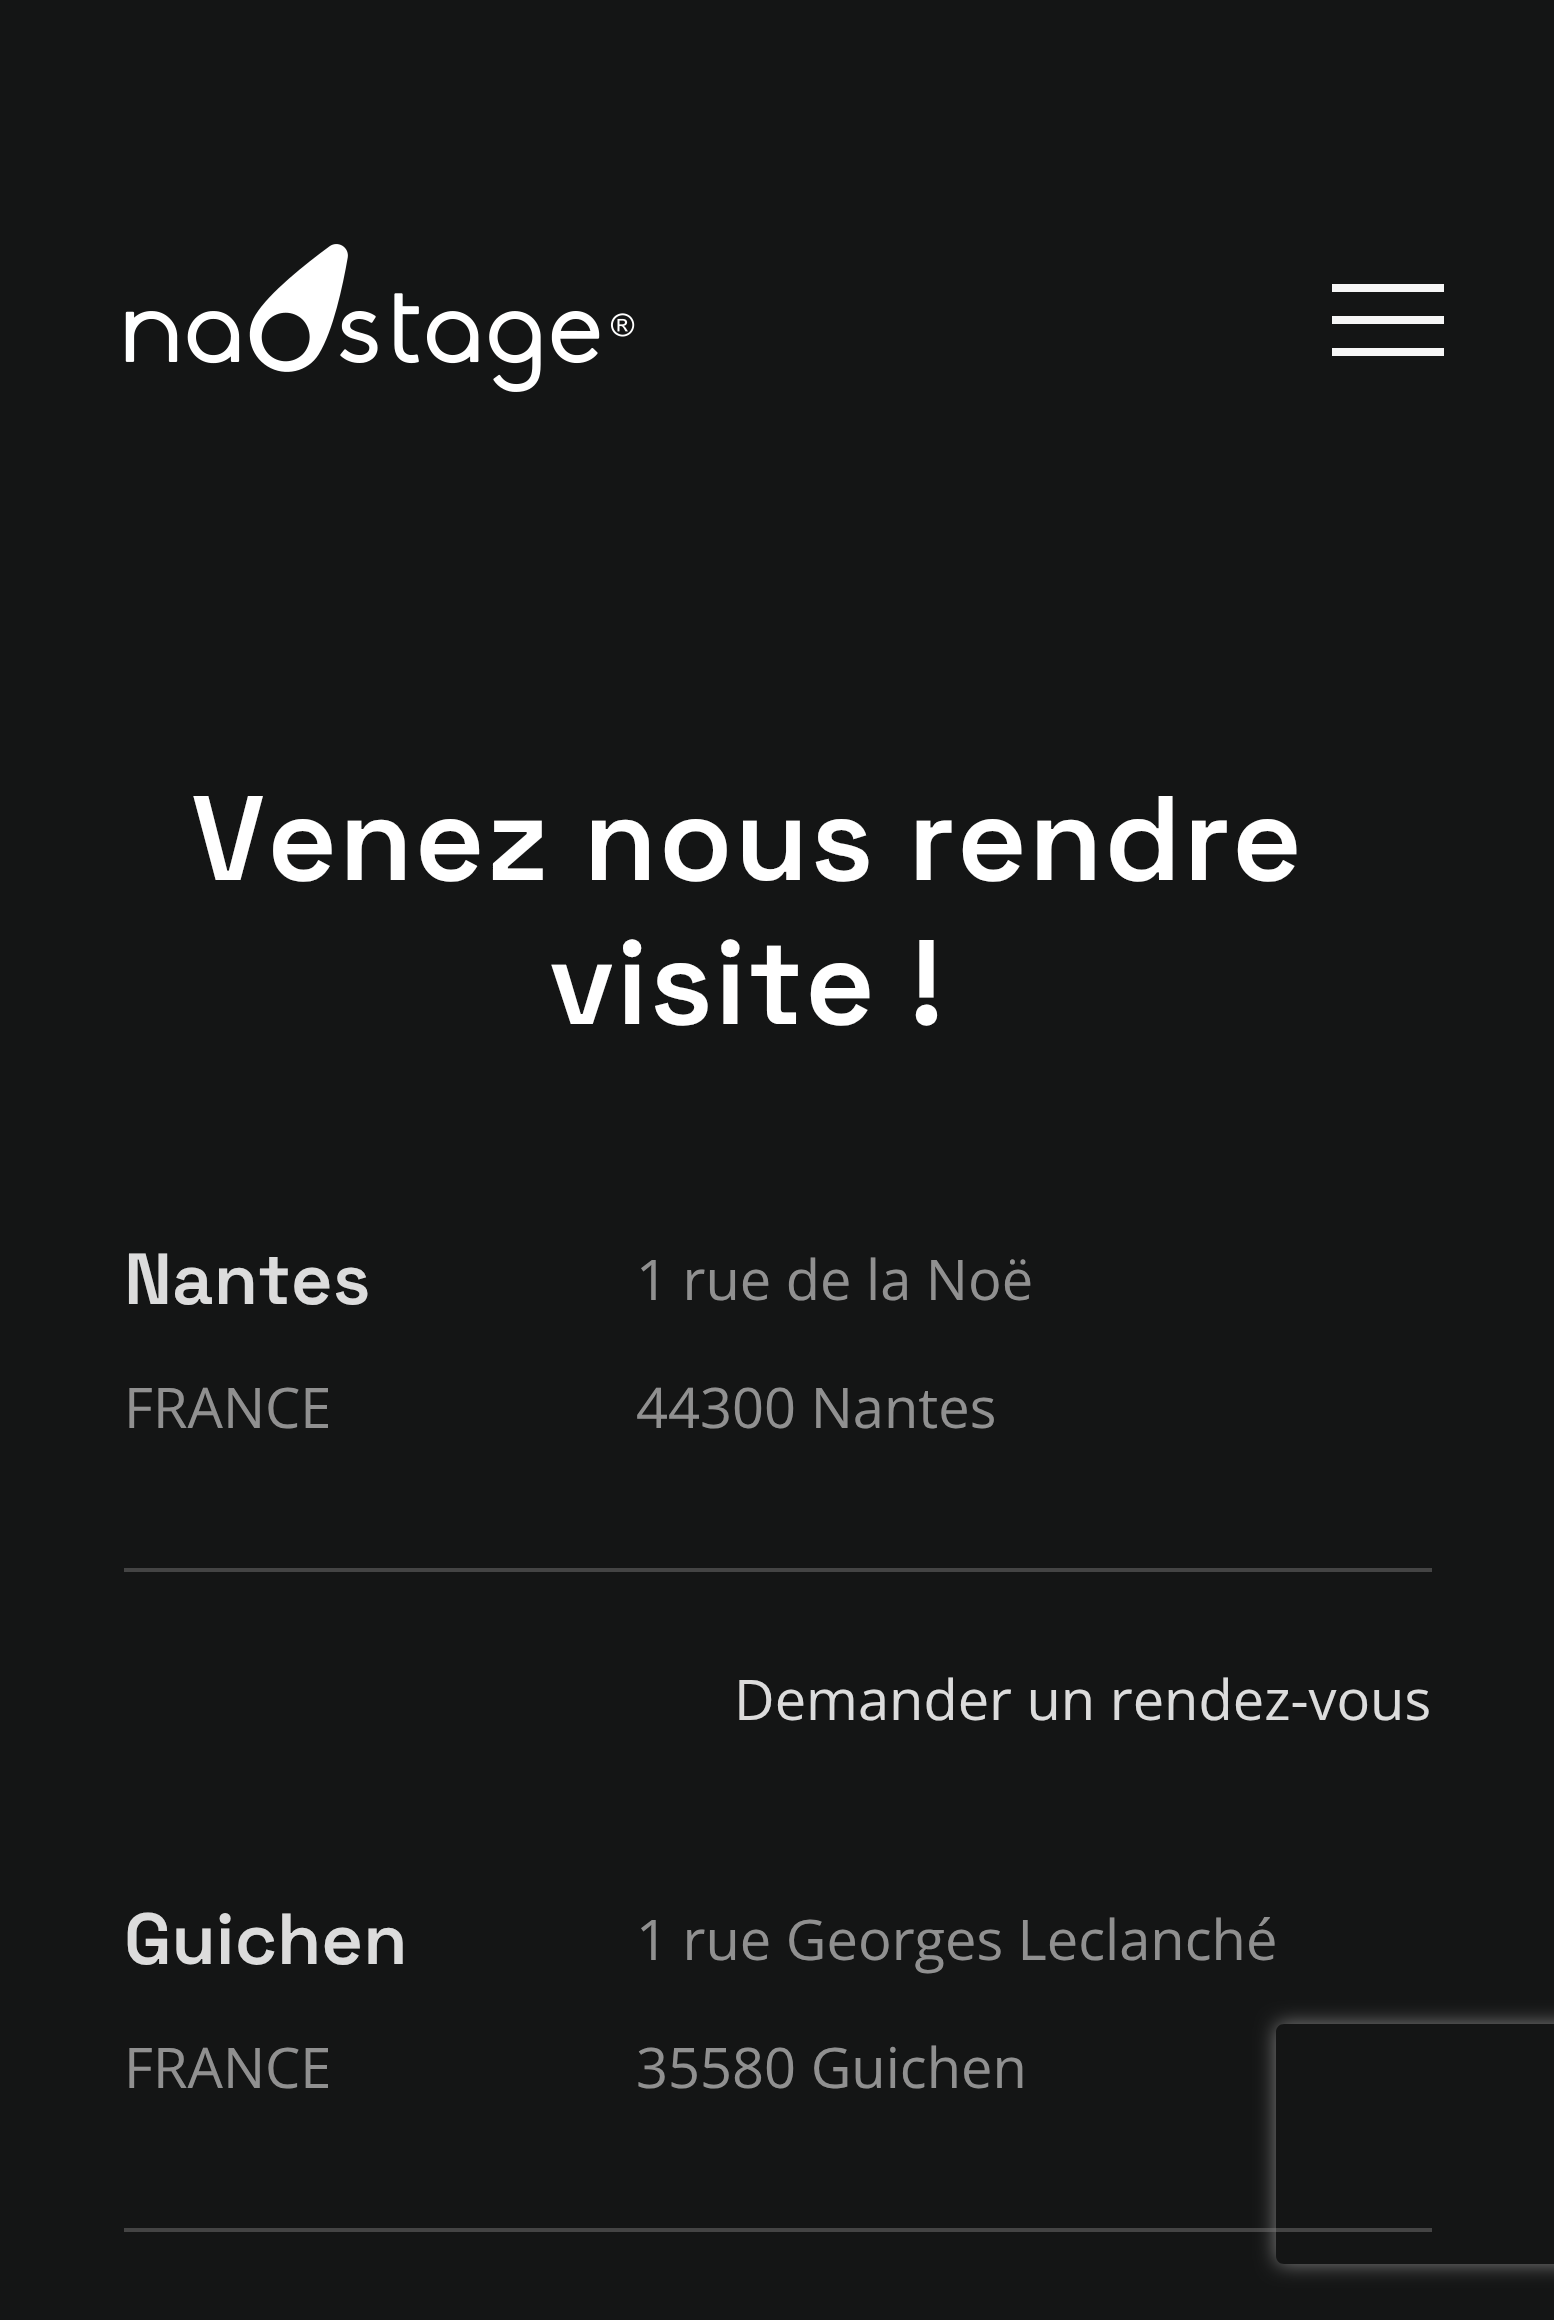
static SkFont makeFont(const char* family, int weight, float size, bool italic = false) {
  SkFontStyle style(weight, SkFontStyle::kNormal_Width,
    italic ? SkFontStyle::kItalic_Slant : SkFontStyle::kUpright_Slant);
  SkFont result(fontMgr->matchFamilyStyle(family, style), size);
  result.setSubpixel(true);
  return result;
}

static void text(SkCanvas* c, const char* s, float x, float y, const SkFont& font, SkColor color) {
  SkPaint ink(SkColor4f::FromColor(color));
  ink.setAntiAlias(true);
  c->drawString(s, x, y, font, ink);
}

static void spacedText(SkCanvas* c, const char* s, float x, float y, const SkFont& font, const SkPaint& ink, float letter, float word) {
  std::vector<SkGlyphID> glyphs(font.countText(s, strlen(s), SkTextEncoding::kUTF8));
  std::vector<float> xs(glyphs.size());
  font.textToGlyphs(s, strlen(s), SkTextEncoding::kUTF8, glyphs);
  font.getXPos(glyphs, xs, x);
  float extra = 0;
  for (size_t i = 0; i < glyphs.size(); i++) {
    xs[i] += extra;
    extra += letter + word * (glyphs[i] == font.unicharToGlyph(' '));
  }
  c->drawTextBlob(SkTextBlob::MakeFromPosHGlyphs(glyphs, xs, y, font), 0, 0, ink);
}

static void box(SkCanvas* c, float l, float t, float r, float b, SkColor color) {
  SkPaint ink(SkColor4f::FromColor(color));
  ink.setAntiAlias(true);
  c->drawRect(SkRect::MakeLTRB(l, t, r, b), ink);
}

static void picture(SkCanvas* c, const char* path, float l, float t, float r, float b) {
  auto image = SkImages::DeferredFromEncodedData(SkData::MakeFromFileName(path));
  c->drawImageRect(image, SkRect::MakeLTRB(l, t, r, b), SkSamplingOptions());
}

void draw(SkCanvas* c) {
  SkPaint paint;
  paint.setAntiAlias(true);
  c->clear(0xff141515);
  picture(c, "img_01.png", 125, 244, 635, 392);
  box(c, 1332, 284, 1444, 292, 0xfff6f6f6);
  box(c, 1332, 316, 1444, 324, 0xfff6f6f6);
  box(c, 1332, 348, 1444, 356, 0xfff6f6f6);
  SkFont face1 = makeFont("Space Grotesk", 600, 120);
  paint.setColor(0xffffffff);
  spacedText(c, "Venez nous rendre", 191, 880, face1, paint, 2, 0);
  spacedText(c, "visite !", 549, 1024, face1, paint, 2, 0);
  box(c, 124, 1568, 1432, 1572, 0xff444444);
  SkFont face2 = makeFont("Space Grotesk", 600, 72);
  text(c, "Nantes", 124, 1304, face2, 0xffdcdcdc);
  SkFont face3 = makeFont("Open Sans", 400, 56);
  text(c, "FRANCE", 124, 1428, face3, 0xff909090);
  text(c, "1 rue de la Noë", 636, 1300, face3, 0xff909090);
  text(c, "44300 Nantes", 636, 1428, face3, 0xff909090);
  text(c, "Demander un rendez-vous", 734, 1720, face3, 0xffdcdcdc);
  box(c, 124, 2228, 1432, 2232, 0xff444444);
  text(c, "Guichen", 124, 1964, face2, 0xffdcdcdc);
  text(c, "FRANCE", 124, 2088, face3, 0xff909090);
  text(c, "1 rue Georges Leclanché", 636, 1960, face3, 0xff909090);
  text(c, "35580 Guichen", 636, 2088, face3, 0xff909090);
  c->save();
  c->clipPath(SkPathBuilder(SkPathFillType::kEvenOdd).moveTo(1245, 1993).lineTo(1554, 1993).lineTo(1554, 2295).lineTo(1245, 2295).close().moveTo(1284, 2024).lineTo(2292, 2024).cubicTo(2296.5f, 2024, 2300, 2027.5f, 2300, 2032).lineTo(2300, 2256).cubicTo(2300, 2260.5f, 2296.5f, 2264, 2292, 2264).lineTo(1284, 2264).cubicTo(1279.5f, 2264, 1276, 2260.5f, 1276, 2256).lineTo(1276, 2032).cubicTo(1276, 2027.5f, 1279.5f, 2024, 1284, 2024).close().detach(), true);
  paint.setColor(0xff808080);
  paint.setMaskFilter(SkMaskFilter::MakeBlur(kNormal_SkBlurStyle, 10));
  c->drawRoundRect(SkRect::MakeLTRB(1276, 2024, 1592, 2264), 8, 8, paint);
  paint.setMaskFilter(nullptr);
  c->restore();
}
